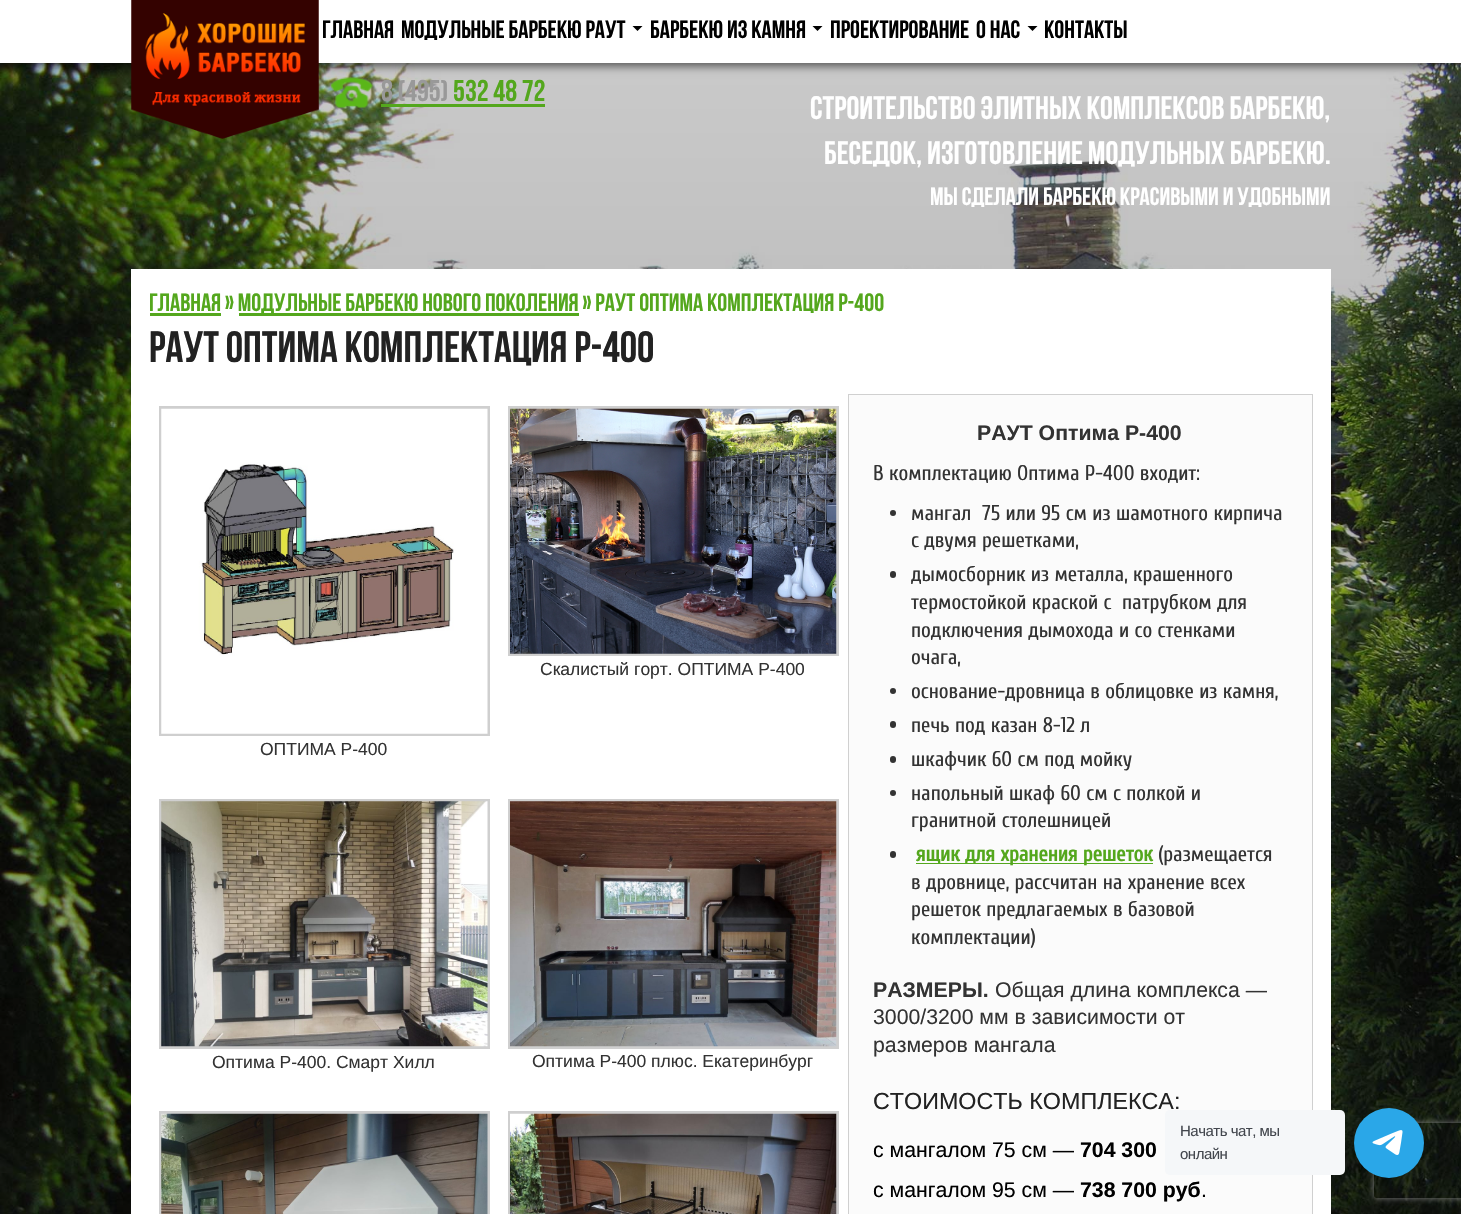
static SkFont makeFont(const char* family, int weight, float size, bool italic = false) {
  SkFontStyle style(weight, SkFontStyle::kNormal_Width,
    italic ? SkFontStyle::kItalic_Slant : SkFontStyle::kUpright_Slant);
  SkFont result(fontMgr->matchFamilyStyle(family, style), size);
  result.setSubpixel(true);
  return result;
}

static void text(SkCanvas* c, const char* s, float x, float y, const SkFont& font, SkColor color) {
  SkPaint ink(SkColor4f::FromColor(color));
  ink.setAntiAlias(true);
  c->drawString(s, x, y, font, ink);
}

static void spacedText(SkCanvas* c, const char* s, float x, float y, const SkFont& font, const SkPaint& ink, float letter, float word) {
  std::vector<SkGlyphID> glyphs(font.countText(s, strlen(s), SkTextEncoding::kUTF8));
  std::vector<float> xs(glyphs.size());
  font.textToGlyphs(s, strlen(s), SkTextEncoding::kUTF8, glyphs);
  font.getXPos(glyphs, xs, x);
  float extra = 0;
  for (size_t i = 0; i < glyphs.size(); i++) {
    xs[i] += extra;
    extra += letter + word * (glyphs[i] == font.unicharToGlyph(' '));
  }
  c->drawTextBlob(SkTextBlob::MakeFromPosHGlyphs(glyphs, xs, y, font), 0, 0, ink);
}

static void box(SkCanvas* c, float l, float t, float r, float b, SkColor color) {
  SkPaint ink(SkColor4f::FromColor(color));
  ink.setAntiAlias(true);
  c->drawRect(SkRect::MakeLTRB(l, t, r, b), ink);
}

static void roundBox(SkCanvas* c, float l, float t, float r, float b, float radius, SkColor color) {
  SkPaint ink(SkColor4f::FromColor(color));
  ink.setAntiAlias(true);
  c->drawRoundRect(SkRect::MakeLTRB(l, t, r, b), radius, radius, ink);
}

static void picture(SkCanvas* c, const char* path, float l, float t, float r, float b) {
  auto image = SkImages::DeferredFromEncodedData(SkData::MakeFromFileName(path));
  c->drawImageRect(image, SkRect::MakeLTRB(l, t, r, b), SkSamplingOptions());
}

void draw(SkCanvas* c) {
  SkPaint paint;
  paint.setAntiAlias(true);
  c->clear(0xffffffff);
  picture(c, "img_01.png", 0, 63, 1461, 1214);
  paint.setColor(0x99000000);
  paint.setMaskFilter(SkMaskFilter::MakeBlur(kNormal_SkBlurStyle, 4.5f));
  c->drawRect(SkRect::MakeLTRB(0, 4, 1461, 66), paint);
  paint.setMaskFilter(nullptr);
  box(c, 0, 0, 1461, 63, 0xffffffff);
  picture(c, "img_02.png", 131, 0, 319, 139);
  SkFont face1 = makeFont("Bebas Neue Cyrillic", 400, 25);
  text(c, "Главная", 322, 38, face1, 0xff000000);
  text(c, "Модульные барбекю Раут", 401, 38, face1, 0xff000000);
  paint.setColor(0xff000000);
  c->drawPath(SkPathBuilder().moveTo(632.5f, 26).lineTo(642.5f, 26).lineTo(637.5f, 31).close().detach(), paint);
  text(c, "Барбекю из камня", 650, 38, face1, 0xff000000);
  c->drawPath(SkPathBuilder().moveTo(812.5f, 26).lineTo(822.5f, 26).lineTo(817.5f, 31).close().detach(), paint);
  text(c, "Проектирование", 830, 38, face1, 0xff000000);
  text(c, "О нас", 976, 38, face1, 0xff000000);
  c->drawPath(SkPathBuilder().moveTo(1027.5f, 26).lineTo(1037.5f, 26).lineTo(1032.5f, 31).close().detach(), paint);
  text(c, "Контакты", 1044, 38, face1, 0xff000000);
  picture(c, "img_03.png", 331, 77, 373, 108);
  SkFont face2 = makeFont("Bebas Neue Cyrillic", 400, 30);
  text(c, "8 (495)", 381, 101, face2, 0xff999999);
  box(c, 381, 104, 545, 107, 0xff54a71d);
  text(c, "532 48 72", 453, 101, face2, 0xff54a71d);
  SkFont face3 = makeFont("Bebas Neue Cyrillic", 400, 32.5f);
  text(c, "Строительство элитных комплексов барбекю,", 810, 119, face3, 0xffffffff);
  text(c, "беседок, изготовление модульных барбекю.", 824, 164, face3, 0xffffffff);
  text(c, "Мы сделали барбекю красивыми и удобными", 930, 205, face1, 0xffffffff);
  box(c, 131, 269, 1331, 1214, 0xffffffff);
  text(c, "Главная » Модульные барбекю нового поколения » РАУТ ОПТИМА комплектация Р-400", 149, 311, face1, 0xff54a71d);
  box(c, 150, 313, 221, 316, 0xff54a71d);
  box(c, 239, 313, 579, 316, 0xff54a71d);
  SkFont face4 = makeFont("Bebas Neue Cyrillic", 400, 43.75f);
  text(c, "РАУТ ОПТИМА комплектация Р-400", 149, 362, face4, 0xff222222);
  paint.setStyle(SkPaint::kStroke_Style);
  paint.setStrokeWidth(3);
  paint.setColor(0xffcfcfcf);
  c->drawRect(SkRect::MakeLTRB(509.5f, 407.5f, 837.5f, 654.5f), paint);
  picture(c, "img_04.png", 510, 408, 837, 654);
  SkFont face5 = makeFont("Liberation Sans", 400, 17.5f);
  text(c, "Скалистый горт. ОПТИМА Р-400", 540, 675, face5, 0xff333333);
  c->drawRect(SkRect::MakeLTRB(160.5f, 407.5f, 488.5f, 734.5f), paint);
  picture(c, "img_05.png", 161, 408, 488, 734);
  text(c, "ОПТИМА Р-400", 260, 755, face5, 0xff333333);
  c->drawRect(SkRect::MakeLTRB(160.5f, 800.5f, 488.5f, 1047.5f), paint);
  picture(c, "img_06.png", 161, 801, 488, 1047);
  text(c, "Оптима Р-400. Смарт Хилл", 212, 1068, face5, 0xff333333);
  c->drawRect(SkRect::MakeLTRB(509.5f, 800.5f, 837.5f, 1047.5f), paint);
  picture(c, "img_07.png", 510, 801, 837, 1047);
  text(c, "Оптима Р-400 плюс. Екатеринбург", 532, 1067, face5, 0xff333333);
  c->drawRect(SkRect::MakeLTRB(160.5f, 1112.5f, 488.5f, 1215.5f), paint);
  picture(c, "img_08.png", 161, 1113, 488, 1214);
  c->drawRect(SkRect::MakeLTRB(509.5f, 1112.5f, 837.5f, 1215.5f), paint);
  picture(c, "img_09.png", 510, 1113, 837, 1214);
  paint.setStyle(SkPaint::kFill_Style);
  paint.setColor(0xfffbfbfb);
  c->drawRect(SkRect::MakeLTRB(848.5f, 394.5f, 1312.5f, 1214.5f), paint);
  paint.setStyle(SkPaint::kStroke_Style);
  paint.setStrokeWidth(1);
  paint.setColor(0xffd0d0d0);
  c->drawRect(SkRect::MakeLTRB(848.5f, 394.5f, 1312.5f, 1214.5f), paint);
  SkFont face6 = makeFont("Liberation Sans", 700, 21.25f);
  text(c, "РАУТ Оптима Р-400", 977, 440, face6, 0xff333333);
  SkFont face7 = makeFont("Cuprum", 400, 21.25f);
  text(c, "В комплектацию Оптима Р-400 входит:", 873, 480, face7, 0xff333333);
  paint.setStyle(SkPaint::kFill_Style);
  paint.setColor(0xff333333);
  c->drawCircle(893, 513, 3, paint);
  text(c, "мангал  75 или 95 см из шамотного кирпича", 911, 520, face7, 0xff333333);
  text(c, "с двумя решетками,", 911, 547, face7, 0xff333333);
  roundBox(c, 890, 571, 896, 578, 3, 0xff333333);
  text(c, "дымосборник из металла, крашенного", 911, 581, face7, 0xff333333);
  text(c, "термостойкой краской с  патрубком для", 911, 609, face7, 0xff333333);
  text(c, "подключения дымохода и со стенками", 911, 637, face7, 0xff333333);
  text(c, "очага,", 911, 664, face7, 0xff333333);
  c->drawCircle(893, 691, 3, paint);
  text(c, "основание-дровница в облицовке из камня,", 911, 698, face7, 0xff333333);
  roundBox(c, 890, 721, 896, 728, 3, 0xff333333);
  text(c, "печь под казан 8-12 л", 911, 732, face7, 0xff333333);
  roundBox(c, 890, 756, 896, 763, 3, 0xff333333);
  text(c, "шкафчик 60 см под мойку", 911, 766, face7, 0xff333333);
  c->drawCircle(893, 793, 3, paint);
  text(c, "напольный шкаф 60 см с полкой и", 911, 800, face7, 0xff333333);
  text(c, "гранитной столешницей", 911, 827, face7, 0xff333333);
  roundBox(c, 890, 851, 896, 858, 3, 0xff333333);
  box(c, 916, 863, 1153, 864, 0xff54a71d);
  SkFont face8 = makeFont("Cuprum", 700, 21.25f);
  text(c, "ящик для хранения решеток", 916, 861, face8, 0xff54a71d);
  text(c, "(размещается", 1158, 861, face7, 0xff333333);
  text(c, "в дровнице, рассчитан на хранение всех", 911, 889, face7, 0xff333333);
  text(c, "решеток предлагаемых в базовой", 911, 916, face7, 0xff333333);
  text(c, "комплектации)", 911, 944, face7, 0xff333333);
  text(c, "РАЗМЕРЫ.", 873, 997, face6, 0xff333333);
  SkFont face9 = makeFont("Liberation Sans", 400, 21.25f);
  text(c, "Общая длина комплекса —", 995, 997, face9, 0xff333333);
  text(c, "3000/3200 мм в зависимости от", 873, 1024, face9, 0xff333333);
  text(c, "размеров мангала", 873, 1052, face9, 0xff333333);
  SkFont face10 = makeFont("Liberation Sans", 400, 23.3f);
  text(c, "СТОИМОСТЬ КОМПЛЕКСА:", 873, 1109, face10, 0xff222222);
  text(c, "с мангалом 75 см —", 873, 1157, face9, 0xff000000);
  text(c, "704 300", 1080, 1157, face6, 0xff000000);
  text(c, "с мангалом 95 см —", 873, 1197, face9, 0xff000000);
  text(c, "738 700 руб", 1080, 1197, face6, 0xff000000);
  text(c, ".", 1201, 1197, face9, 0xff000000);
  paint.setColor(0x24000000);
  paint.setMaskFilter(SkMaskFilter::MakeBlur(kNormal_SkBlurStyle, 5));
  c->drawRoundRect(SkRect::MakeLTRB(1351, 1113, 1426, 1188), 37.5f, 37.5f, paint);
  paint.setMaskFilter(nullptr);
  roundBox(c, 1165, 1110, 1345, 1175, 5, 0xfff5f7f9);
  SkFont face11 = makeFont("Liberation Sans", 400, 15);
  paint.setColor(0xff43474e);
  spacedText(c, "Начать чат, мы", 1180, 1136, face11, paint, -0.5f, 0);
  spacedText(c, "онлайн", 1180, 1159, face11, paint, -0.5f, 0);
  c->save();
  c->clipPath(SkPathBuilder(SkPathFillType::kEvenOdd).moveTo(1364, 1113).lineTo(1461, 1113).lineTo(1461, 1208).lineTo(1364, 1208).close().moveTo(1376.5f, 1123).lineTo(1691.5f, 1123).cubicTo(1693, 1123, 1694, 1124, 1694, 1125.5f).lineTo(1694, 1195.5f).cubicTo(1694, 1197, 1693, 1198, 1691.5f, 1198).lineTo(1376.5f, 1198).cubicTo(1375, 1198, 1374, 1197, 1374, 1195.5f).lineTo(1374, 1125.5f).cubicTo(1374, 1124, 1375, 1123, 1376.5f, 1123).close().detach(), true);
  paint.setColor(0xff808080);
  paint.setMaskFilter(SkMaskFilter::MakeBlur(kNormal_SkBlurStyle, 3));
  c->drawRoundRect(SkRect::MakeLTRB(1374, 1123, 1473, 1198), 2.5f, 2.5f, paint);
  paint.setMaskFilter(nullptr);
  c->restore();
  paint.setColor(0xff2aa7e8);
  c->drawCircle(1389, 1143, 35, paint);
  picture(c, "img_10.png", 1372, 1130, 1403, 1155);
}
